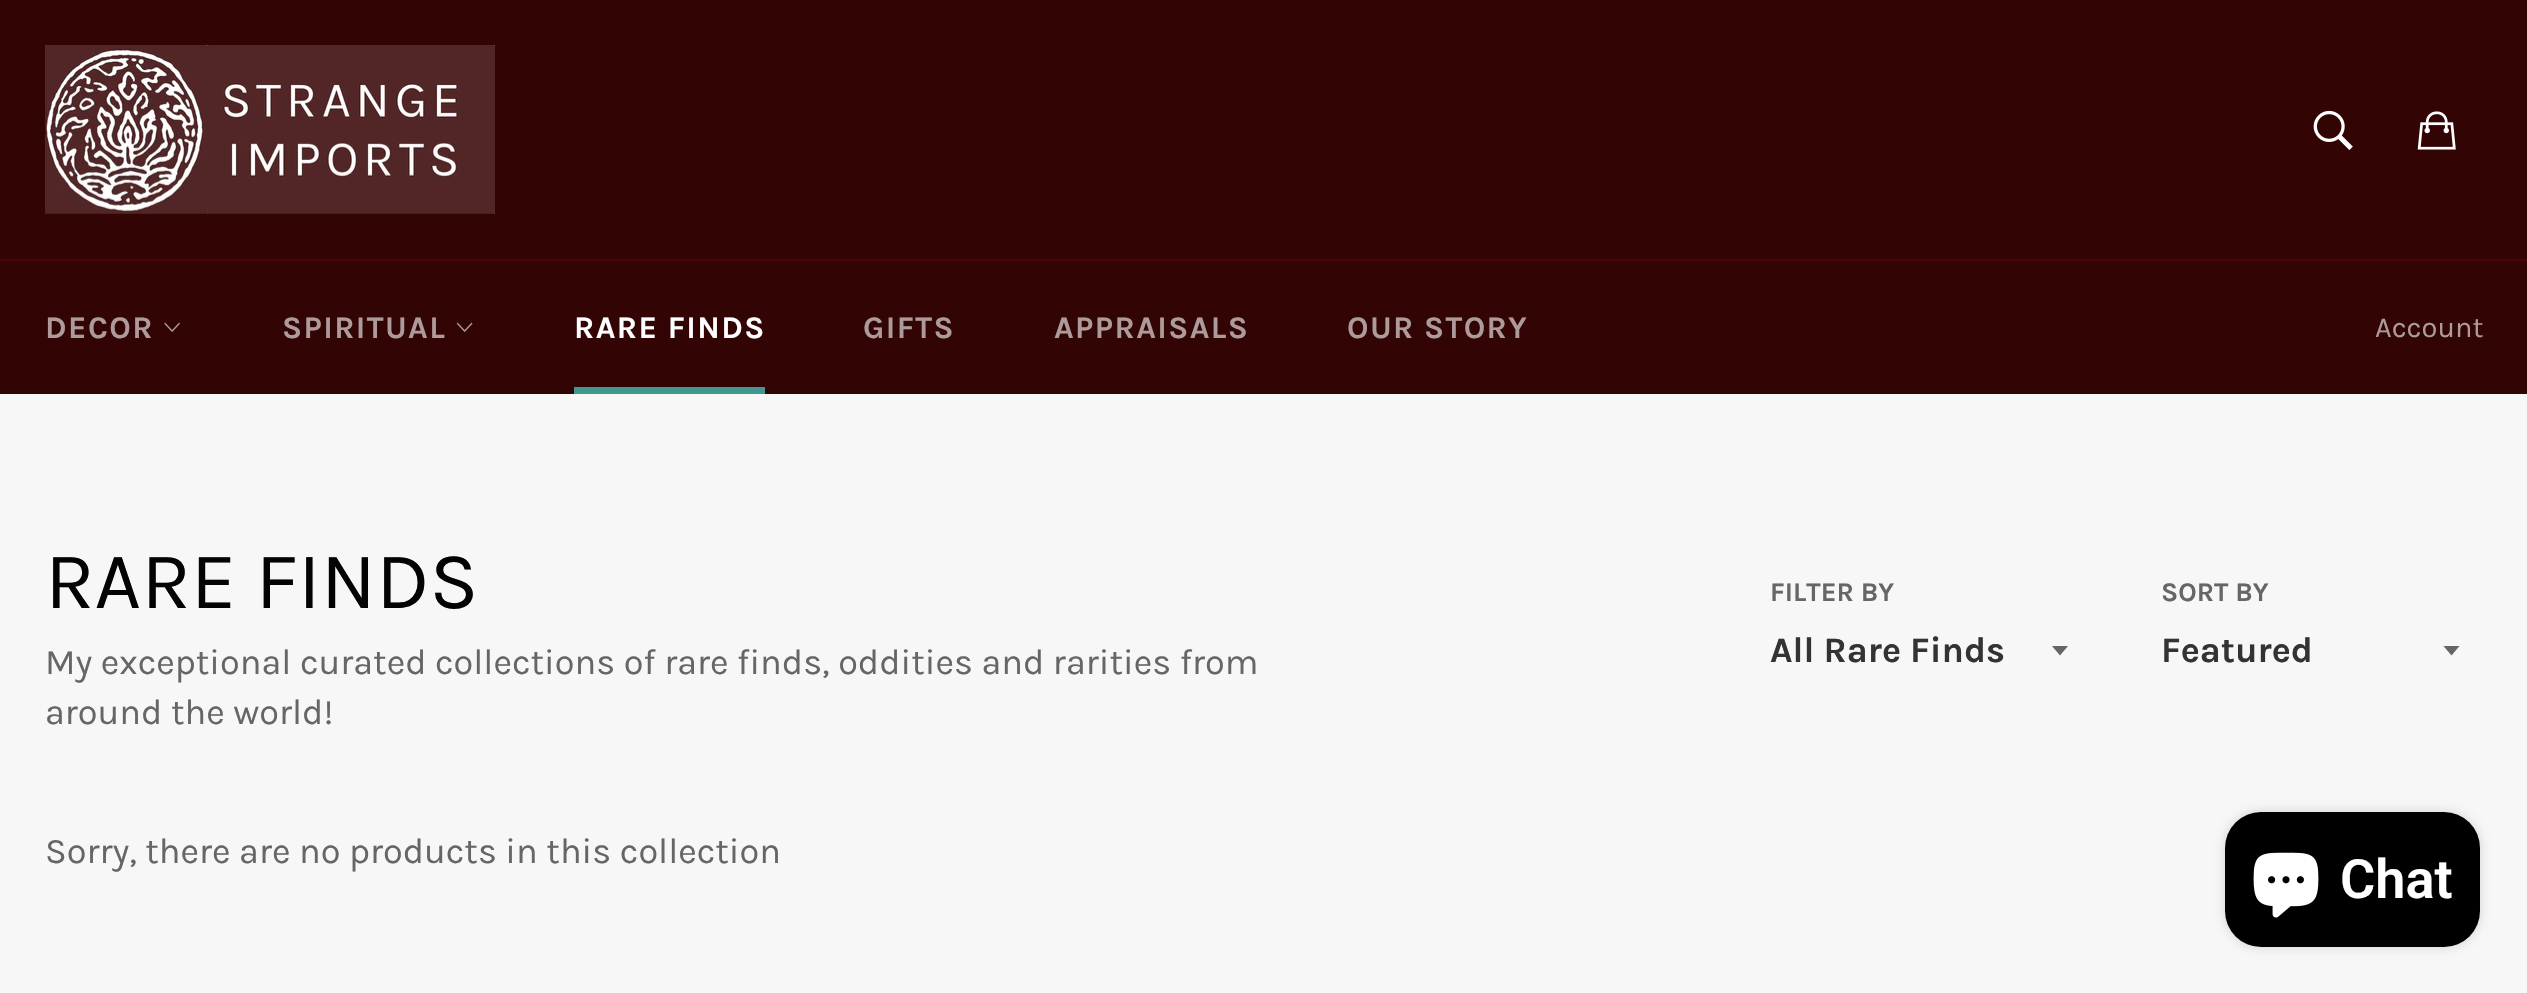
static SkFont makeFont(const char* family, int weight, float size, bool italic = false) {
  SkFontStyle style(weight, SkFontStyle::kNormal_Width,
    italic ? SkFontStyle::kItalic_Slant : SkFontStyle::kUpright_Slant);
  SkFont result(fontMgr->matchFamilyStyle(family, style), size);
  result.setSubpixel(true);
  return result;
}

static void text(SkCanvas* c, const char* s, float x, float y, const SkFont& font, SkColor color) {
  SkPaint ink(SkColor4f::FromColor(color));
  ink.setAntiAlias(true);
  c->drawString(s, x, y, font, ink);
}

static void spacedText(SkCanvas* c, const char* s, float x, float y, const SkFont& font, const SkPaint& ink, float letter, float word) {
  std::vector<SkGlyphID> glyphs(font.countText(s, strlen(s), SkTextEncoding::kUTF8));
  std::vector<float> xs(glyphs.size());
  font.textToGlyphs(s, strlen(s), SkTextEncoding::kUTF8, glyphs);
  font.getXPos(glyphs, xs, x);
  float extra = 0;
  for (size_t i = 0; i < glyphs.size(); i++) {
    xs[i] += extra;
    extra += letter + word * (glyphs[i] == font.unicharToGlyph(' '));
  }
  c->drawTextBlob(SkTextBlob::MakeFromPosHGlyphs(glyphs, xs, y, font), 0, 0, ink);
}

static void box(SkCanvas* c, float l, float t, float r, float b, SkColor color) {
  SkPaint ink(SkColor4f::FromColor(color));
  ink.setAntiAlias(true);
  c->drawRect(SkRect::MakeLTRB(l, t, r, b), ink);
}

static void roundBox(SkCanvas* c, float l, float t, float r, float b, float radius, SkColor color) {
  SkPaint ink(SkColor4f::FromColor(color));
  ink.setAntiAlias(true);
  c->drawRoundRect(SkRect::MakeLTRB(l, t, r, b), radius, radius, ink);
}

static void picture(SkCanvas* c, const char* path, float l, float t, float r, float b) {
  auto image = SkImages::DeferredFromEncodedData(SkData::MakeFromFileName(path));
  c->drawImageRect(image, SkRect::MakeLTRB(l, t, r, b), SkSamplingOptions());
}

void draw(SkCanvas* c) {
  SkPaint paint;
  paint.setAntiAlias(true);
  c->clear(0xfff7f7f7);
  box(c, 0, 0, 2527, 259, 0xff320404);
  picture(c, "img_01.png", 45, 45, 495, 214);
  picture(c, "img_02.png", 2313, 110, 2353, 150);
  picture(c, "img_03.png", 2417, 111, 2456, 150);
  box(c, 0, 261, 2527, 394, 0xff320404);
  box(c, 0, 259, 2527, 261, 0xff4a0606);
  SkFont face1 = makeFont("Karla", 700, 31.5f);
  paint.setColor(0xffad9b9b);
  spacedText(c, "DECOR", 45, 338, face1, paint, 1.4f, 0);
  picture(c, "img_04.png", 164, 322, 180, 332);
  spacedText(c, "SPIRITUAL", 282, 338, face1, paint, 1.4f, 0);
  picture(c, "img_05.png", 456, 322, 473, 332);
  paint.setColor(0xffffffff);
  spacedText(c, "RARE FINDS", 574, 338, face1, paint, 1.4f, 0);
  box(c, 574, 387, 765, 394, 0xff41988f);
  paint.setColor(0xffad9b9b);
  spacedText(c, "GIFTS", 863, 338, face1, paint, 1.4f, 0);
  spacedText(c, "APPRAISALS", 1054, 338, face1, paint, 1.4f, 0);
  spacedText(c, "OUR STORY", 1347, 338, face1, paint, 1.4f, 0);
  SkFont face2 = makeFont("Karla", 400, 29);
  text(c, "Account", 2375, 337, face2, 0xffad9b9b);
  SkFont face3 = makeFont("Karla", 400, 81);
  text(c, "RARE FINDS", 45, 608, face3, 0xff030303);
  SkFont face4 = makeFont("Karla", 400, 36);
  text(c, "My exceptional curated collections of rare finds, oddities and rarities from", 45, 674, face4, 0xff666666);
  text(c, "around the world!", 45, 724, face4, 0xff666666);
  SkFont face5 = makeFont("Karla", 700, 27);
  text(c, "FILTER BY", 1770, 601, face5, 0xff666666);
  paint.setColor(0xff666666);
  c->drawPath(SkPathBuilder().moveTo(2052, 646).lineTo(2060, 655.5f).lineTo(2068, 646).close().detach(), paint);
  SkFont face6 = makeFont("Karla", 700, 36);
  text(c, "All Rare Finds", 1770, 662, face6, 0xff333333);
  text(c, "SORT BY", 2161, 601, face5, 0xff666666);
  c->drawPath(SkPathBuilder().moveTo(2443.5f, 646).lineTo(2451.5f, 655.5f).lineTo(2459.5f, 646).close().detach(), paint);
  text(c, "Featured", 2161, 662, face6, 0xff333333);
  text(c, "Sorry, there are no products in this collection", 45, 863, face4, 0xff666666);
  paint.setColor(0x26000000);
  paint.setMaskFilter(SkMaskFilter::MakeBlur(kNormal_SkBlurStyle, 5.5f));
  c->drawRoundRect(SkRect::MakeLTRB(2225, 812, 2480, 947), 36, 36, paint);
  paint.setMaskFilter(nullptr);
  roundBox(c, 2225, 812, 2480, 947, 36, 0xff000000);
  picture(c, "img_06.png", 2253, 852, 2319, 918);
  SkFont face7 = makeFont("Roboto", 600, 54);
  text(c, "Chat", 2340, 898, face7, 0xffffffff);
}
